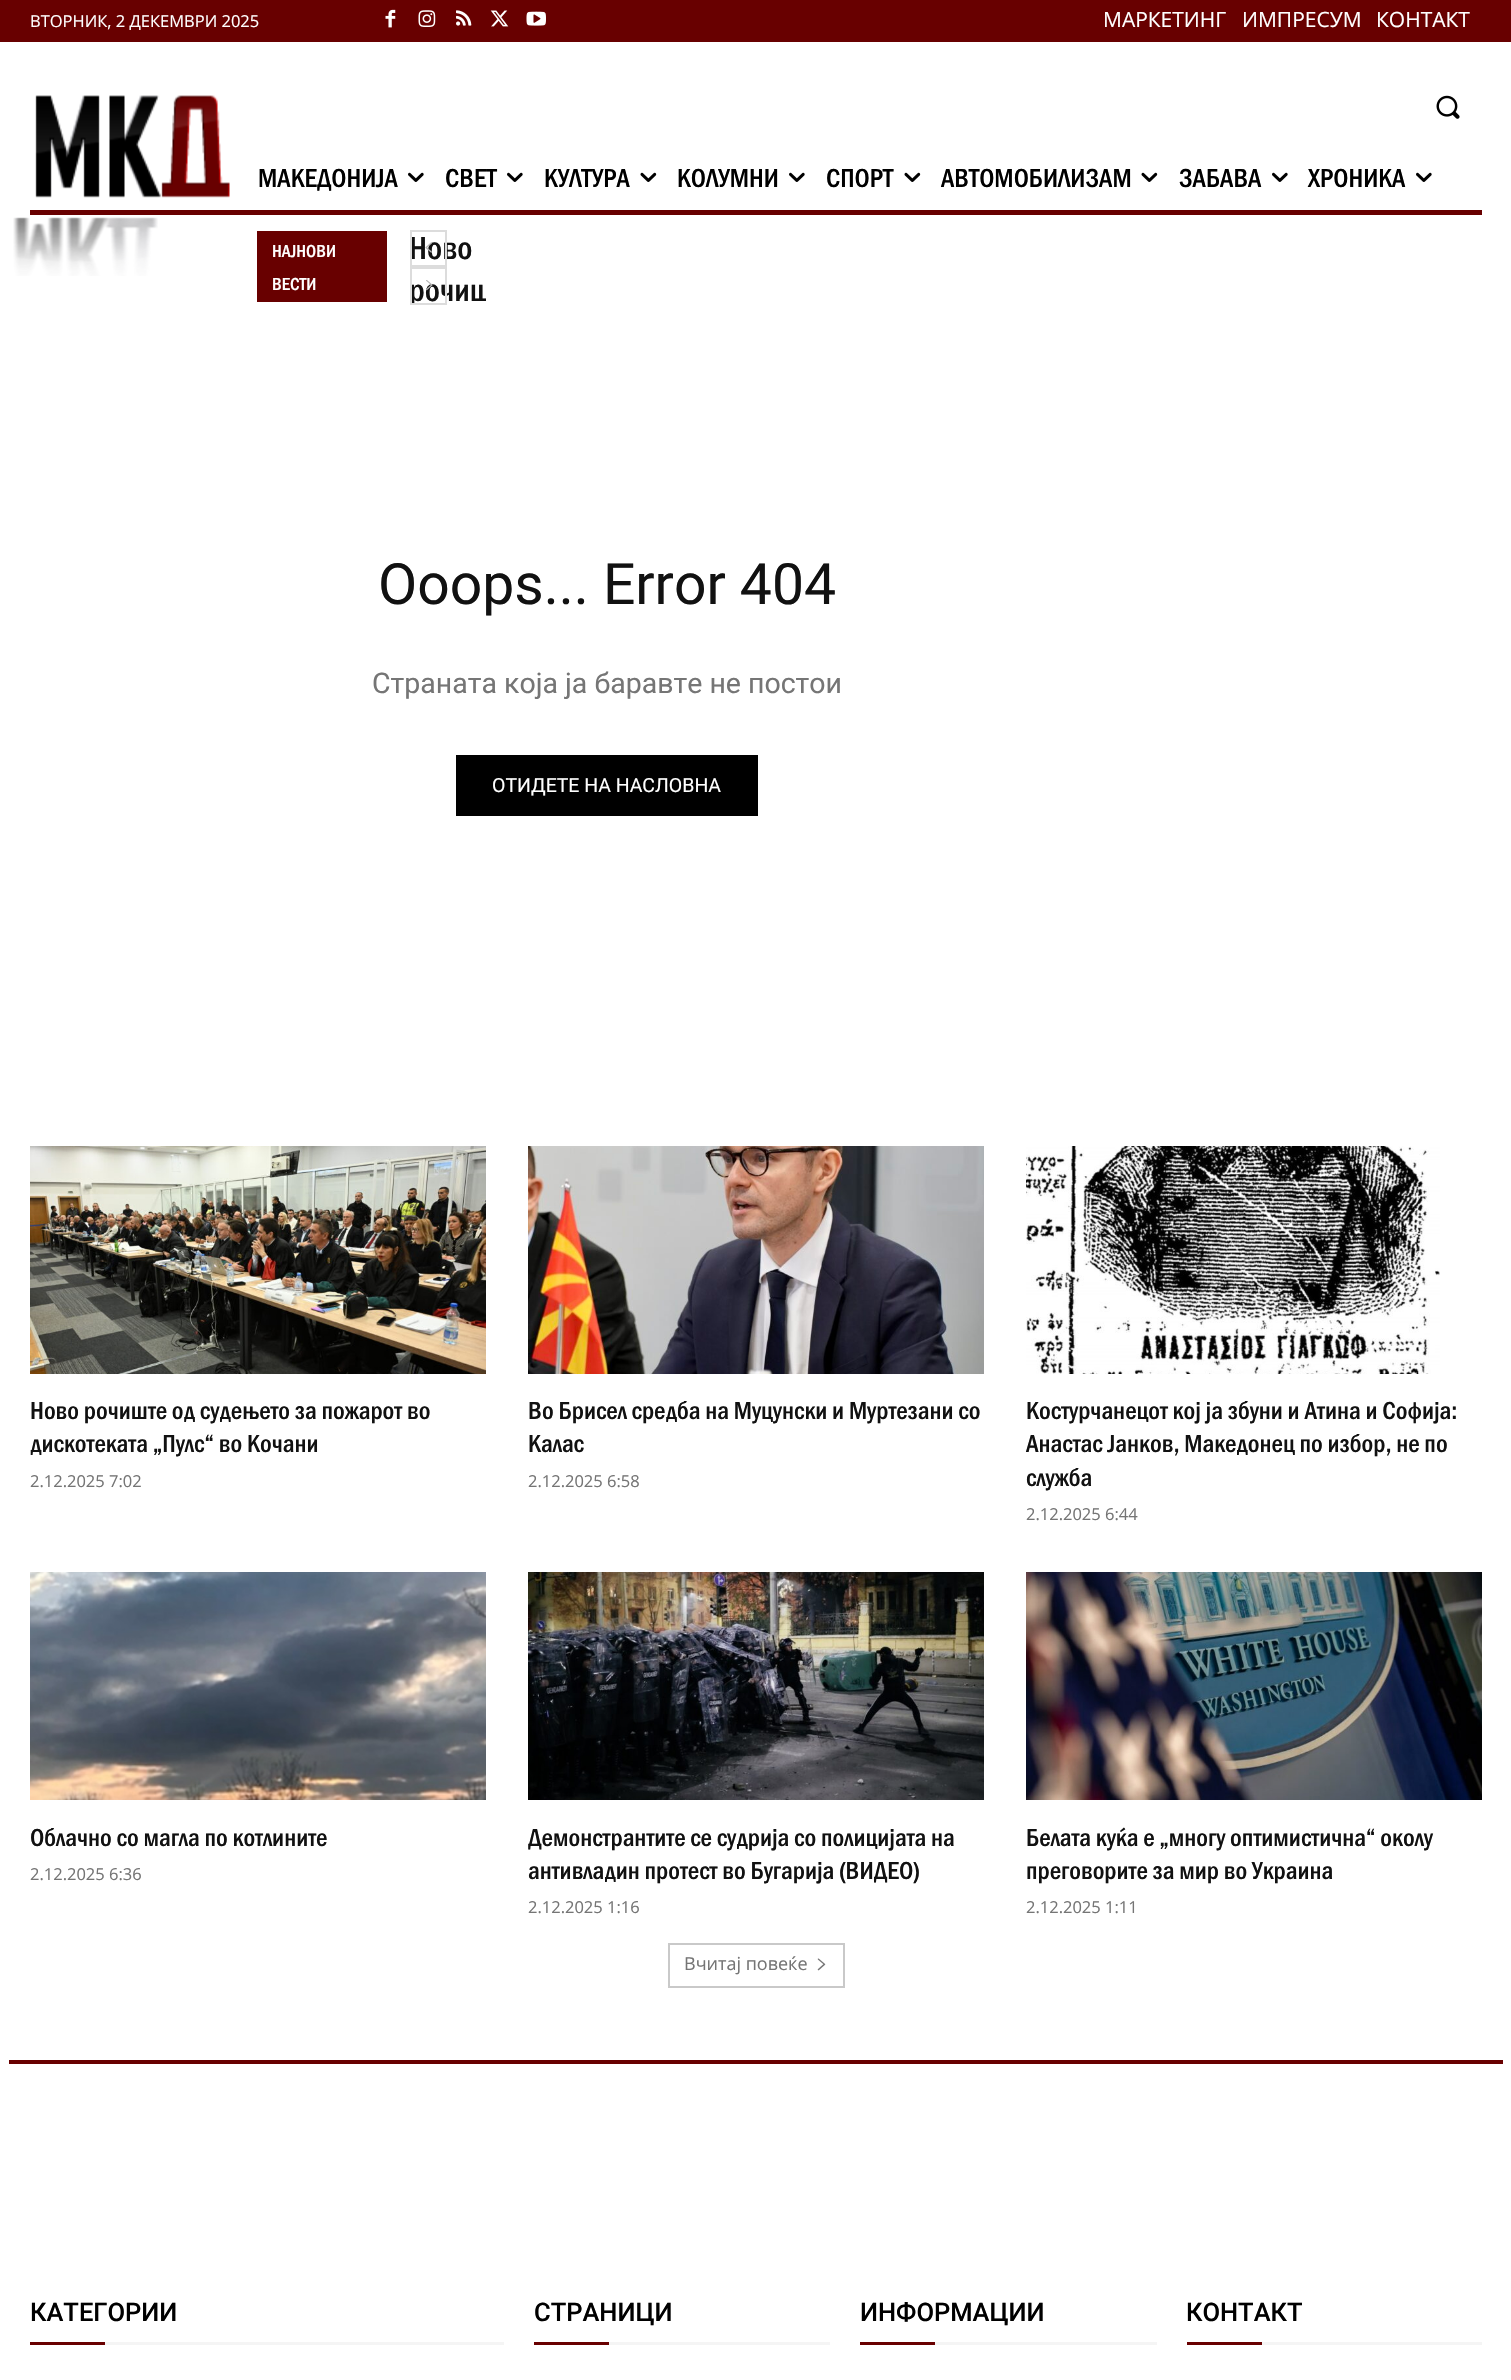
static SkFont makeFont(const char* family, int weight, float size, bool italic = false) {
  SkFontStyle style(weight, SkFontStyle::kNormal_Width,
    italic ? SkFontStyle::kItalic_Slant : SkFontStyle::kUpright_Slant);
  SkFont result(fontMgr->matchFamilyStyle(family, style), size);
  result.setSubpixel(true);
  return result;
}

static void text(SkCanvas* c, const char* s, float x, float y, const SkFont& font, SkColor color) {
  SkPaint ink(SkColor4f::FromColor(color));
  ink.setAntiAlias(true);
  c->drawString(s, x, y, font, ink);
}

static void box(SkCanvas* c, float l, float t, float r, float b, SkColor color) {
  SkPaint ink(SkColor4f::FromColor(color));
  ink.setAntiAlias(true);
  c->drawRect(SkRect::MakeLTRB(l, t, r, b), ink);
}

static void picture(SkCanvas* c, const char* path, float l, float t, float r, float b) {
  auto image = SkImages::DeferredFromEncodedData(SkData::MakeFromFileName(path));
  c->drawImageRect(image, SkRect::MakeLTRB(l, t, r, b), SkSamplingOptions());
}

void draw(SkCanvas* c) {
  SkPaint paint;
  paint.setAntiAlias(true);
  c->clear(0xffffffff);
  box(c, 0, 0, 1511, 42, 0xff680000);
  SkFont face1 = makeFont("Open Sans", 400, 16.5f);
  text(c, "ВТОРНИК, 2 ДЕКЕМВРИ 2025", 30, 27, face1, 0xffffffff);
  picture(c, "img_01.png", 385, 9, 396, 28);
  picture(c, "img_02.png", 418, 10, 436, 27);
  picture(c, "img_03.png", 456, 10, 472, 26);
  picture(c, "img_04.png", 490, 10, 509, 27);
  picture(c, "img_05.png", 526, 11, 546, 26);
  SkFont face2 = makeFont("Open Sans", 400, 21);
  text(c, "МАРКЕТИНГ", 1103, 27, face2, 0xffffffff);
  text(c, "ИМПРЕСУМ", 1242, 27, face2, 0xffffffff);
  text(c, "КОНТАКТ", 1376, 27, face2, 0xffffffff);
  picture(c, "img_06.png", 35, 95, 230, 198);
  picture(c, "img_07.png", 1436, 95, 1460, 119);
  SkFont face3 = makeFont("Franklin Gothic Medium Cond", 500, 27);
  text(c, "МАКЕДОНИЈА", 258, 187, face3, 0xff000000);
  picture(c, "img_08.png", 408, 172, 424, 182);
  text(c, "СВЕТ", 445, 187, face3, 0xff000000);
  picture(c, "img_08.png", 507, 172, 523, 182);
  text(c, "КУЛТУРА", 544, 187, face3, 0xff000000);
  picture(c, "img_09.png", 640, 172, 657, 182);
  text(c, "КОЛУМНИ", 677, 187, face3, 0xff000000);
  picture(c, "img_08.png", 789, 172, 805, 182);
  text(c, "СПОРТ", 826, 187, face3, 0xff000000);
  picture(c, "img_09.png", 904, 172, 921, 182);
  text(c, "АВТОМОБИЛИЗАМ", 941, 187, face3, 0xff000000);
  picture(c, "img_09.png", 1141, 172, 1158, 182);
  text(c, "ЗАБАВА", 1179, 187, face3, 0xff000000);
  picture(c, "img_08.png", 1272, 172, 1288, 182);
  text(c, "ХРОНИКА", 1308, 187, face3, 0xff000000);
  picture(c, "img_08.png", 1416, 172, 1432, 182);
  box(c, 30, 210, 1482, 215, 0xff680000);
  picture(c, "img_10.png", 13, 217, 158, 276);
  SkFont face4 = makeFont("Franklin Gothic Medium Cond", 500, 33);
  text(c, "Ново", 409, 259, face4, 0xff111111);
  paint.setStyle(SkPaint::kStroke_Style);
  paint.setStrokeWidth(2);
  paint.setColor(0xffdcdcdc);
  c->drawRect(SkRect::MakeLTRB(411, 231, 446, 266), paint);
  picture(c, "img_11.png", 425, 242, 432, 253);
  c->save();
  c->clipRect(SkRect::MakeLTRB(410, 230, 486, 305));
  text(c, "рочиш", 409, 301, face4, 0xff111111);
  c->restore();
  c->drawRect(SkRect::MakeLTRB(411, 268, 446, 304), paint);
  picture(c, "img_12.png", 426, 280, 433, 291);
  box(c, 257, 231, 387, 302, 0xff680000);
  SkFont face5 = makeFont("Franklin Gothic Medium Cond", 500, 18);
  text(c, "НАЈНОВИ", 272, 257, face5, 0xffffffff);
  text(c, "ВЕСТИ", 272, 290, face5, 0xffffffff);
  SkFont face6 = makeFont("Roboto", 400, 57);
  text(c, "Ooops... Error 404", 378, 604, face6, 0xff111111);
  SkFont face7 = makeFont("Roboto", 400, 28.5f);
  text(c, "Страната која ја баравте не постои", 372, 693, face7, 0xff757575);
  box(c, 456, 755, 758, 816, 0xff000000);
  SkFont face8 = makeFont("Roboto", 400, 19.5f);
  text(c, "ОТИДЕТЕ НА НАСЛОВНА", 492, 792, face8, 0xffffffff);
  picture(c, "img_13.png", 30, 1146, 486, 1374);
  SkFont face9 = makeFont("Franklin Gothic Medium Cond", 500, 25.5f);
  text(c, "Ново рочиште oд судењето за пожарот во", 30, 1419, face9, 0xff111111);
  text(c, "дискотеката „Пулс“ во Кочани", 30, 1452, face9, 0xff111111);
  text(c, "2.12.2025 7:02", 30, 1487, face1, 0xff757575);
  picture(c, "img_14.png", 528, 1146, 984, 1374);
  text(c, "Во Брисел средба на Mуцунски и Муртезани со", 528, 1419, face9, 0xff111111);
  text(c, "Калас", 528, 1452, face9, 0xff111111);
  text(c, "2.12.2025 6:58", 528, 1487, face1, 0xff757575);
  picture(c, "img_15.png", 1026, 1146, 1440, 1374);
  text(c, "Костурчанецот кој ја збуни и Атина и Софија:", 1026, 1419, face9, 0xff111111);
  text(c, "Анастас Јанков, Македонец по избор, не по", 1026, 1452, face9, 0xff111111);
  text(c, "служба", 1026, 1486, face9, 0xff111111);
  text(c, "2.12.2025 6:44", 1026, 1520, face1, 0xff757575);
  picture(c, "img_16.png", 30, 1572, 486, 1800);
  text(c, "Облачно со магла по котлините", 30, 1846, face9, 0xff111111);
  text(c, "2.12.2025 6:36", 30, 1880, face1, 0xff757575);
  picture(c, "img_17.png", 528, 1572, 984, 1800);
  text(c, "Демонстрантите се судрија со полицијата на", 528, 1846, face9, 0xff111111);
  text(c, "антивладин протест во Бугарија (ВИДЕО)", 528, 1879, face9, 0xff111111);
  text(c, "2.12.2025 1:16", 528, 1913, face1, 0xff757575);
  picture(c, "img_18.png", 1026, 1572, 1482, 1800);
  text(c, "Белата куќа е „многу оптимистична“ околу", 1026, 1846, face9, 0xff111111);
  text(c, "преговорите за мир во Украина", 1026, 1879, face9, 0xff111111);
  text(c, "2.12.2025 1:11", 1026, 1913, face1, 0xff757575);
  paint.setColor(0xffc9c9c9);
  c->drawRect(SkRect::MakeLTRB(669, 1944, 844, 1987), paint);
  SkFont face10 = makeFont("Open Sans", 400, 18);
  text(c, "Вчитај повеќе", 684, 1970, face10, 0xff757575);
  picture(c, "img_19.png", 817, 1958, 826, 1971);
  box(c, 9, 2060, 1503, 2064, 0xff680000);
  SkFont face11 = makeFont("Roboto", 500, 25.5f);
  text(c, "КАТЕГОРИИ", 30, 2321, face11, 0xff000000);
  box(c, 30, 2342, 105, 2345, 0xff680000);
  box(c, 105, 2342, 504, 2345, 0xfff5f5f5);
  text(c, "СТРАНИЦИ", 534, 2321, face11, 0xff000000);
  box(c, 534, 2342, 609, 2345, 0xff680000);
  box(c, 609, 2342, 830, 2345, 0xfff5f5f5);
  text(c, "ИНФОРМАЦИИ", 860, 2321, face11, 0xff000000);
  box(c, 860, 2342, 935, 2345, 0xff680000);
  box(c, 935, 2342, 1157, 2345, 0xfff5f5f5);
  text(c, "КОНТАКТ", 1186, 2321, face11, 0xff000000);
  box(c, 1187, 2342, 1262, 2345, 0xff680000);
  box(c, 1262, 2342, 1482, 2345, 0xfff5f5f5);
}
